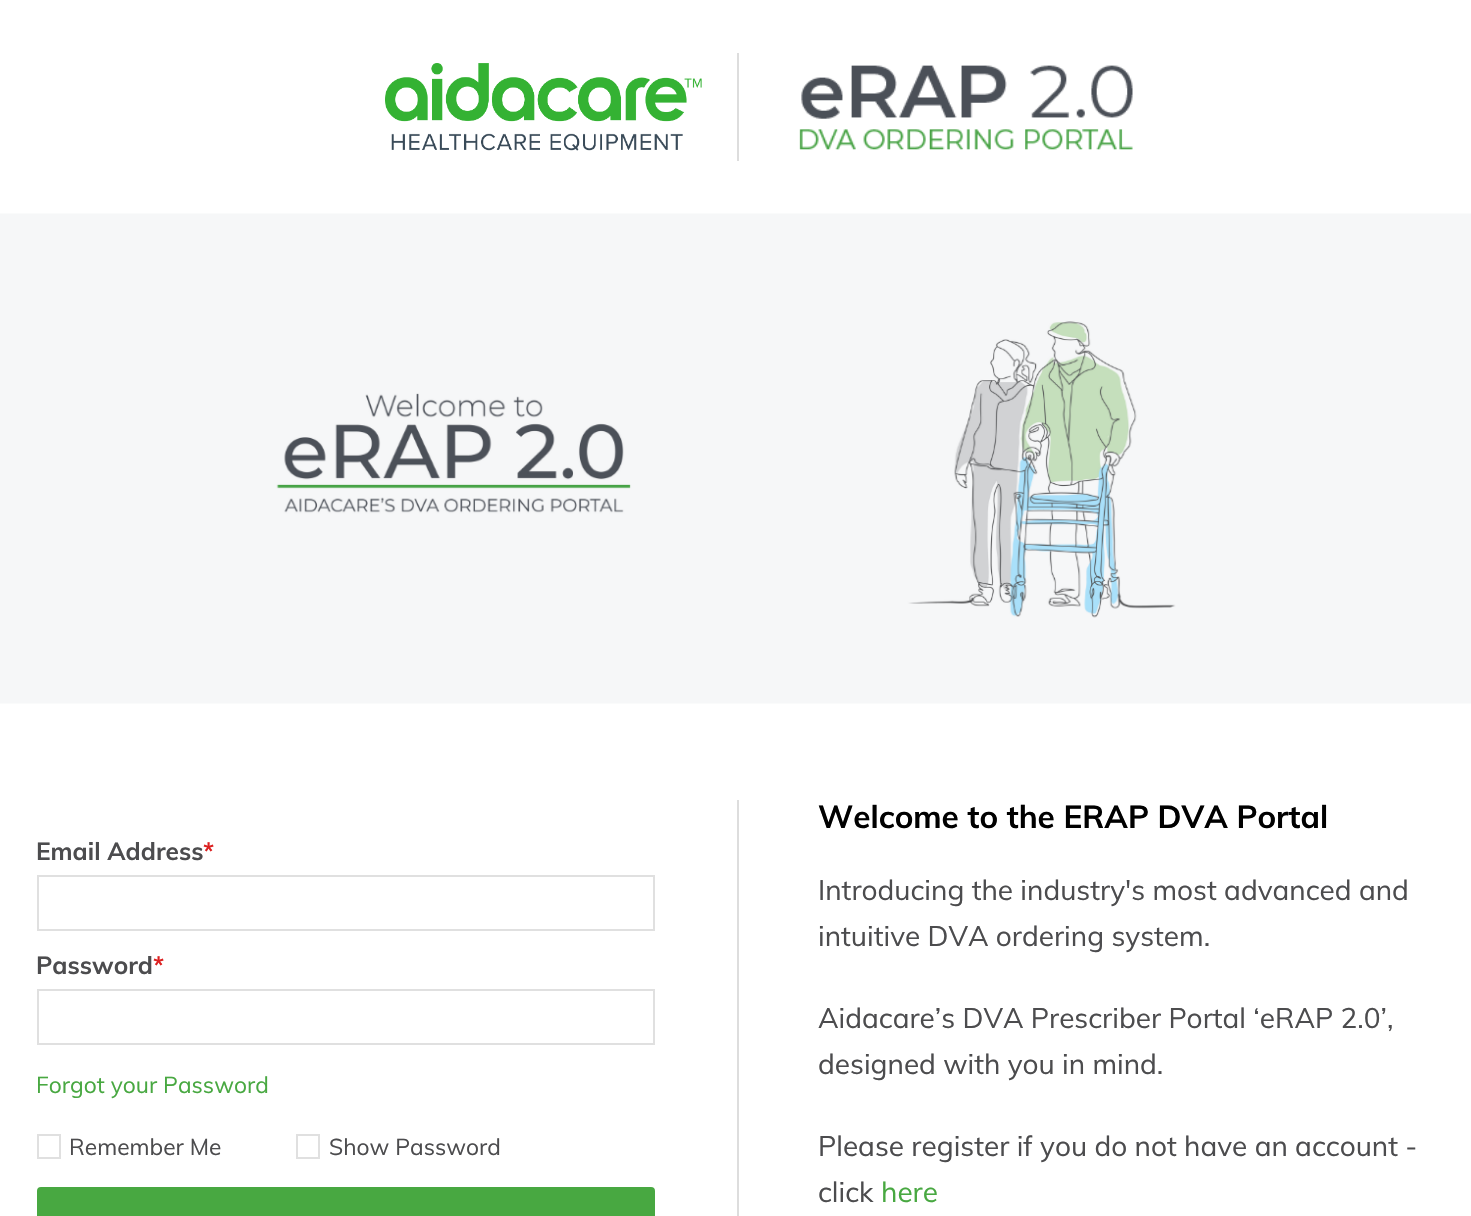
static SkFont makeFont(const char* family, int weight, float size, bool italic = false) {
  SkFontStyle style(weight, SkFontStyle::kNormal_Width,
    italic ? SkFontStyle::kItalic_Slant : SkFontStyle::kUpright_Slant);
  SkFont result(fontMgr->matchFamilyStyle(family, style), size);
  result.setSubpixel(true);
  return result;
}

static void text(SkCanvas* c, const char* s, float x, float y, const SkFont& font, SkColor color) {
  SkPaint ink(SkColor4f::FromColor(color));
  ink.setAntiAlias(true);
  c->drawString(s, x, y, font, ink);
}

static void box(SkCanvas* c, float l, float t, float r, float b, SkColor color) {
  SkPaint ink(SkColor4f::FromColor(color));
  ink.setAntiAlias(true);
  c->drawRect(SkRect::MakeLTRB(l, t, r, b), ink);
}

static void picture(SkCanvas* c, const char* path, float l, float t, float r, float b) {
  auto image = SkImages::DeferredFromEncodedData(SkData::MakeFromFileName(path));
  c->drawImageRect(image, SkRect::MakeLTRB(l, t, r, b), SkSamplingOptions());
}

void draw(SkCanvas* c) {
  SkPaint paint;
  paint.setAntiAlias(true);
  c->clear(0xffffffff);
  picture(c, "img_01.png", 385, 63, 702, 151);
  box(c, 737, 53, 739, 161, 0xffdddddd);
  picture(c, "img_02.png", 799, 65, 1133, 150);
  picture(c, "img_03.png", 0, 213, 1471, 704);
  box(c, 737, 800, 739, 1216, 0xffdddddd);
  SkFont face1 = makeFont("Muli", 700, 24.5f);
  text(c, "Email Address", 36, 860, face1, 0xff4c4c4e);
  text(c, "*", 203, 860, face1, 0xffdc2020);
  paint.setStyle(SkPaint::kStroke_Style);
  paint.setStrokeWidth(2);
  paint.setColor(0xffe0e0e0);
  c->drawRect(SkRect::MakeLTRB(38, 876, 654, 930), paint);
  text(c, "Password", 36, 974, face1, 0xff4c4c4e);
  text(c, "*", 153, 974, face1, 0xffdc2020);
  c->drawRect(SkRect::MakeLTRB(38, 990, 654, 1044), paint);
  SkFont face2 = makeFont("Muli", 400, 22.75f);
  text(c, "Forgot your Password", 36, 1093, face2, 0xff48a841);
  c->drawRect(SkRect::MakeLTRB(38, 1135, 60, 1158), paint);
  text(c, "Remember Me", 69, 1155, face2, 0xff4c4c4e);
  c->drawRect(SkRect::MakeLTRB(297, 1135, 319, 1158), paint);
  text(c, "Show Password", 329, 1155, face2, 0xff4c4c4e);
  paint.setStyle(SkPaint::kFill_Style);
  paint.setColor(0xff48a841);
  c->drawRoundRect(SkRect::MakeLTRB(38, 1188, 654, 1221), 3, 3, paint);
  paint.setStyle(SkPaint::kStroke_Style);
  c->drawRoundRect(SkRect::MakeLTRB(38, 1188, 654, 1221), 3, 3, paint);
  SkFont face3 = makeFont("Muli", 700, 31.5f);
  text(c, "Welcome to the ERAP DVA Portal", 818, 828, face3, 0xff000000);
  SkFont face4 = makeFont("Muli", 400, 28);
  text(c, "Introducing the industry's most advanced and", 818, 900, face4, 0xff4c4c4e);
  text(c, "intuitive DVA ordering system.", 818, 946, face4, 0xff4c4c4e);
  text(c, "Aidacare’s DVA Prescriber Portal ‘eRAP 2.0’,", 818, 1028, face4, 0xff4c4c4e);
  text(c, "designed with you in mind.", 818, 1074, face4, 0xff4c4c4e);
  text(c, "Please register if you do not have an account -", 818, 1156, face4, 0xff4c4c4e);
  text(c, "click", 818, 1202, face4, 0xff4c4c4e);
  text(c, "here", 881, 1202, face4, 0xff48a841);
}
